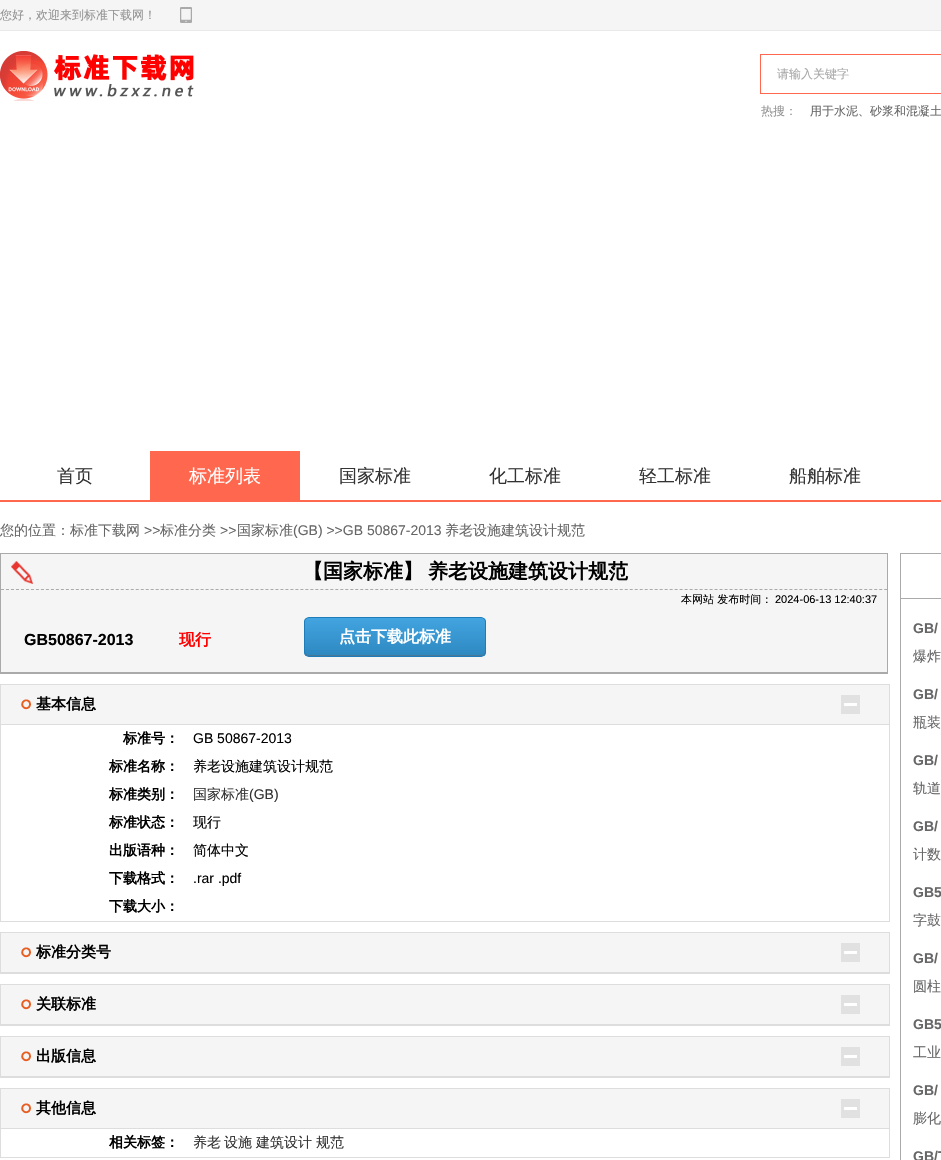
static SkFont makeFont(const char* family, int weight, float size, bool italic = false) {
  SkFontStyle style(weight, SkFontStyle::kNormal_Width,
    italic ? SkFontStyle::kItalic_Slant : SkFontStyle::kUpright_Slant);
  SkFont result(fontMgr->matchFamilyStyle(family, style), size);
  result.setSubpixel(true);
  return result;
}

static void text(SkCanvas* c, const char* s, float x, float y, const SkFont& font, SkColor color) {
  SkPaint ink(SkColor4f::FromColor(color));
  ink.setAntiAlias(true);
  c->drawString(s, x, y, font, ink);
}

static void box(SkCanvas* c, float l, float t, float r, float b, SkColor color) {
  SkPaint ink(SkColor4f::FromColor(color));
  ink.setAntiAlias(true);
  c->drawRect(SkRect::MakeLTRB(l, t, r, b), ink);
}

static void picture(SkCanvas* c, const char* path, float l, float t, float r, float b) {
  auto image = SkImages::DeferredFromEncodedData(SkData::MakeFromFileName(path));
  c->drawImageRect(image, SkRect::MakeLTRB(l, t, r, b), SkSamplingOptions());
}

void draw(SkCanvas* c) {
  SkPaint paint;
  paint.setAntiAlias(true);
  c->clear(0xffffffff);
  box(c, 0, 0, 941, 30, 0xfff5f5f5);
  box(c, 0, 30, 941, 31, 0xffe9e9e9);
  SkFont face1 = makeFont("WenQuanYi Zen Hei", 500, 12);
  text(c, "您好，欢迎来到标准下载网！", 0, 19, face1, 0xff949494);
  picture(c, "img_01.png", 180, 7, 192, 23);
  picture(c, "img_02.png", 0, 51, 194, 101);
  paint.setStyle(SkPaint::kStroke_Style);
  paint.setStrokeWidth(1);
  paint.setColor(0xffff684f);
  c->drawRect(SkRect::MakeLTRB(760.5f, 54.5f, 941.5f, 93.5f), paint);
  text(c, "请输入关键字", 777, 78, face1, 0xffa8a8a8);
  text(c, "热搜：", 761, 115, face1, 0xff949494);
  text(c, "用于水泥、砂浆和混凝土", 810, 115, face1, 0xff666666);
  box(c, 0, 500, 941, 502, 0xffff684f);
  SkFont face2 = makeFont("WenQuanYi Zen Hei", 500, 18);
  text(c, "首页", 57, 482, face2, 0xff333333);
  box(c, 150, 451, 300, 500, 0xffff684f);
  text(c, "标准列表", 189, 482, face2, 0xffffffff);
  text(c, "国家标准", 339, 482, face2, 0xff333333);
  text(c, "化工标准", 489, 482, face2, 0xff333333);
  text(c, "轻工标准", 639, 482, face2, 0xff333333);
  text(c, "船舶标准", 789, 482, face2, 0xff333333);
  SkFont face3 = makeFont("WenQuanYi Zen Hei", 500, 14);
  text(c, "您的位置：标准下载网", 0, 535, face3, 0xff666666);
  SkFont face4 = makeFont("Liberation Sans", 400, 14);
  text(c, ">>", 144, 535, face4, 0xff666666);
  text(c, "标准分类", 160, 535, face3, 0xff666666);
  text(c, ">>", 220, 535, face4, 0xff666666);
  text(c, "国家标准", 237, 535, face3, 0xff666666);
  text(c, "(GB) >>GB 50867-2013", 293, 535, face4, 0xff666666);
  text(c, "养老设施建筑设计规范", 445, 535, face3, 0xff666666);
  paint.setStyle(SkPaint::kFill_Style);
  paint.setColor(0xfff5f5f5);
  c->drawRect(SkRect::MakeLTRB(0.5f, 553.5f, 887.5f, 672.5f), paint);
  paint.setStyle(SkPaint::kStroke_Style);
  paint.setColor(0xffaaaaaa);
  c->drawRect(SkRect::MakeLTRB(0.5f, 553.5f, 887.5f, 672.5f), paint);
  picture(c, "img_03.png", 11, 561, 33, 584);
  paint.setPathEffect(SkDashPathEffect::Make({{3, 1.99f}}, 0));
  c->drawPath(SkPathBuilder().moveTo(1, 589.5f).lineTo(887, 589.5f).detach(), paint);
  paint.setPathEffect(nullptr);
  SkFont face5 = makeFont("WenQuanYi Zen Hei", 700, 20);
  text(c, "【国家标准】", 303, 578, face5, 0xff000000);
  text(c, "养老设施建筑设计规范", 428, 578, face5, 0xff000000);
  SkFont face6 = makeFont("WenQuanYi Zen Hei", 500, 11);
  text(c, "本网站 发布时间：", 681, 603, face6, 0xff000000);
  SkFont face7 = makeFont("Liberation Sans", 400, 11);
  text(c, "2024-06-13 12:40:37", 775, 603, face7, 0xff000000);
  SkFont face8 = makeFont("Liberation Sans", 700, 16);
  text(c, "GB50867-2013", 24, 645, face8, 0xff000000);
  SkFont face9 = makeFont("WenQuanYi Zen Hei", 700, 16);
  text(c, "现行", 179, 645, face9, 0xffff0000);
  c->save();
  c->clipPath(SkPathBuilder().moveTo(309, 617).lineTo(481, 617).cubicTo(484, 617, 486, 619, 486, 622).lineTo(486, 652).cubicTo(486, 655, 484, 657, 481, 657).lineTo(309, 657).cubicTo(306, 657, 304, 655, 304, 652).lineTo(304, 622).cubicTo(304, 619, 306, 617, 309, 617).close().detach(), true);
  paint.setStyle(SkPaint::kFill_Style);
  {
    const SkColor colors[] = {0xff42a4e0, 0xff2e88c0};
    const float stops[] = {0, 1};
    const SkPoint ends[] = {{395, 618}, {395, 656}};
    paint.setShader(SkGradientShader::MakeLinear(ends, colors, stops, 2, SkTileMode::kClamp));
    paint.setAlpha(255);
  }
  c->drawRect(SkRect::MakeLTRB(304, 618, 486, 656), paint);
  c->restore();
  paint.setShader(nullptr);
  paint.setColor(0xff497897);
  c->drawPath(SkPathBuilder().moveTo(305, 651).lineTo(305, 652).cubicTo(305, 654, 307, 656, 309, 656).lineTo(481, 656).cubicTo(483, 656, 485, 654, 485, 652).lineTo(485, 651).cubicTo(485, 653, 483, 655, 481, 655).lineTo(309, 655).cubicTo(307, 655, 305, 653, 305, 651).close().detach(), paint);
  paint.setStyle(SkPaint::kStroke_Style);
  paint.setColor(0xff1e7db9);
  c->drawRoundRect(SkRect::MakeLTRB(304.5f, 617.5f, 485.5f, 656.5f), 4.5f, 4.5f, paint);
  text(c, "点击下载此标准", 339, 642, face9, 0xffffffff);
  box(c, 0, 673, 888, 674, 0xffaaaaaa);
  paint.setStyle(SkPaint::kFill_Style);
  paint.setColor(0xfff5f5f5);
  c->drawRect(SkRect::MakeLTRB(0.5f, 684.5f, 889.5f, 724.5f), paint);
  paint.setStyle(SkPaint::kStroke_Style);
  paint.setColor(0xffdddddd);
  c->drawRect(SkRect::MakeLTRB(0.5f, 684.5f, 889.5f, 724.5f), paint);
  picture(c, "img_04.png", 21, 699, 31, 710);
  SkFont face10 = makeFont("WenQuanYi Zen Hei", 700, 15);
  text(c, "基本信息", 36, 709, face10, 0xff000000);
  picture(c, "img_05.png", 841, 695, 860, 714);
  box(c, 889, 725, 890, 922, 0xffdddddd);
  box(c, 0, 921, 890, 922, 0xffdddddd);
  box(c, 0, 725, 1, 922, 0xffdddddd);
  SkFont face11 = makeFont("WenQuanYi Zen Hei", 700, 14);
  text(c, "标准号：", 123, 743, face11, 0xff000000);
  text(c, "GB 50867-2013", 193, 743, face4, 0xff000000);
  text(c, "标准名称：", 109, 771, face11, 0xff000000);
  text(c, "养老设施建筑设计规范", 193, 771, face3, 0xff000000);
  text(c, "标准类别：", 109, 799, face11, 0xff000000);
  text(c, "国家标准", 193, 799, face3, 0xff333333);
  text(c, "(GB)", 249, 799, face4, 0xff333333);
  text(c, "标准状态：", 109, 827, face11, 0xff000000);
  text(c, "现行", 193, 827, face3, 0xff000000);
  text(c, "出版语种：", 109, 855, face11, 0xff000000);
  text(c, "简体中文", 193, 855, face3, 0xff000000);
  text(c, "下载格式：", 109, 883, face11, 0xff000000);
  text(c, ".rar .pdf", 193, 883, face4, 0xff000000);
  text(c, "下载大小：", 109, 911, face11, 0xff000000);
  paint.setStyle(SkPaint::kFill_Style);
  paint.setColor(0xfff5f5f5);
  c->drawRect(SkRect::MakeLTRB(0.5f, 932.5f, 889.5f, 972.5f), paint);
  paint.setStyle(SkPaint::kStroke_Style);
  paint.setColor(0xffdddddd);
  c->drawRect(SkRect::MakeLTRB(0.5f, 932.5f, 889.5f, 972.5f), paint);
  picture(c, "img_04.png", 21, 947, 31, 958);
  text(c, "标准分类号", 36, 957, face10, 0xff000000);
  picture(c, "img_05.png", 841, 943, 860, 962);
  box(c, 0, 973, 890, 974, 0xffdddddd);
  paint.setStyle(SkPaint::kFill_Style);
  paint.setColor(0xfff5f5f5);
  c->drawRect(SkRect::MakeLTRB(0.5f, 984.5f, 889.5f, 1024.5f), paint);
  paint.setStyle(SkPaint::kStroke_Style);
  paint.setColor(0xffdddddd);
  c->drawRect(SkRect::MakeLTRB(0.5f, 984.5f, 889.5f, 1024.5f), paint);
  picture(c, "img_04.png", 21, 999, 31, 1010);
  text(c, "关联标准", 36, 1009, face10, 0xff000000);
  picture(c, "img_05.png", 841, 995, 860, 1014);
  box(c, 0, 1025, 890, 1026, 0xffdddddd);
  paint.setStyle(SkPaint::kFill_Style);
  paint.setColor(0xfff5f5f5);
  c->drawRect(SkRect::MakeLTRB(0.5f, 1036.5f, 889.5f, 1076.5f), paint);
  paint.setStyle(SkPaint::kStroke_Style);
  paint.setColor(0xffdddddd);
  c->drawRect(SkRect::MakeLTRB(0.5f, 1036.5f, 889.5f, 1076.5f), paint);
  picture(c, "img_04.png", 21, 1051, 31, 1062);
  text(c, "出版信息", 36, 1061, face10, 0xff000000);
  picture(c, "img_05.png", 841, 1047, 860, 1066);
  box(c, 0, 1077, 890, 1078, 0xffdddddd);
  paint.setStyle(SkPaint::kFill_Style);
  paint.setColor(0xfff5f5f5);
  c->drawRect(SkRect::MakeLTRB(0.5f, 1088.5f, 889.5f, 1128.5f), paint);
  paint.setStyle(SkPaint::kStroke_Style);
  paint.setColor(0xffdddddd);
  c->drawRect(SkRect::MakeLTRB(0.5f, 1088.5f, 889.5f, 1128.5f), paint);
  picture(c, "img_04.png", 21, 1103, 31, 1114);
  text(c, "其他信息", 36, 1113, face10, 0xff000000);
  picture(c, "img_05.png", 841, 1099, 860, 1118);
  box(c, 889, 1129, 890, 1158, 0xffdddddd);
  box(c, 0, 1157, 890, 1158, 0xffdddddd);
  box(c, 0, 1129, 1, 1158, 0xffdddddd);
  text(c, "相关标签：", 109, 1147, face11, 0xff000000);
  text(c, "养老", 193, 1147, face3, 0xff333333);
  text(c, "设施", 224, 1147, face3, 0xff333333);
  text(c, "建筑设计", 256, 1147, face3, 0xff333333);
  text(c, "规范", 316, 1147, face3, 0xff333333);
  paint.setColor(0xffaaaaaa);
  c->drawRect(SkRect::MakeLTRB(900.5f, 553.5f, 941.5f, 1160.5f), paint);
  box(c, 901, 598, 941, 599, 0xffaaaaaa);
  SkFont face12 = makeFont("Liberation Sans", 700, 14);
  text(c, "GB/", 913, 633, face12, 0xff666666);
  text(c, "爆炸", 913, 661, face3, 0xff666666);
  text(c, "GB/", 913, 699, face12, 0xff666666);
  text(c, "瓶装", 913, 727, face3, 0xff666666);
  text(c, "GB/", 913, 765, face12, 0xff666666);
  text(c, "轨道", 913, 793, face3, 0xff666666);
  text(c, "GB/", 913, 831, face12, 0xff666666);
  text(c, "计数", 913, 859, face3, 0xff666666);
  text(c, "GB5", 913, 897, face12, 0xff666666);
  text(c, "字鼓", 913, 925, face3, 0xff666666);
  text(c, "GB/", 913, 963, face12, 0xff666666);
  text(c, "圆柱", 913, 991, face3, 0xff666666);
  text(c, "GB5", 913, 1029, face12, 0xff666666);
  text(c, "工业", 913, 1057, face3, 0xff666666);
  text(c, "GB/", 913, 1095, face12, 0xff666666);
  text(c, "膨化", 913, 1123, face3, 0xff666666);
  text(c, "GB/T", 913, 1161, face12, 0xff666666);
}
